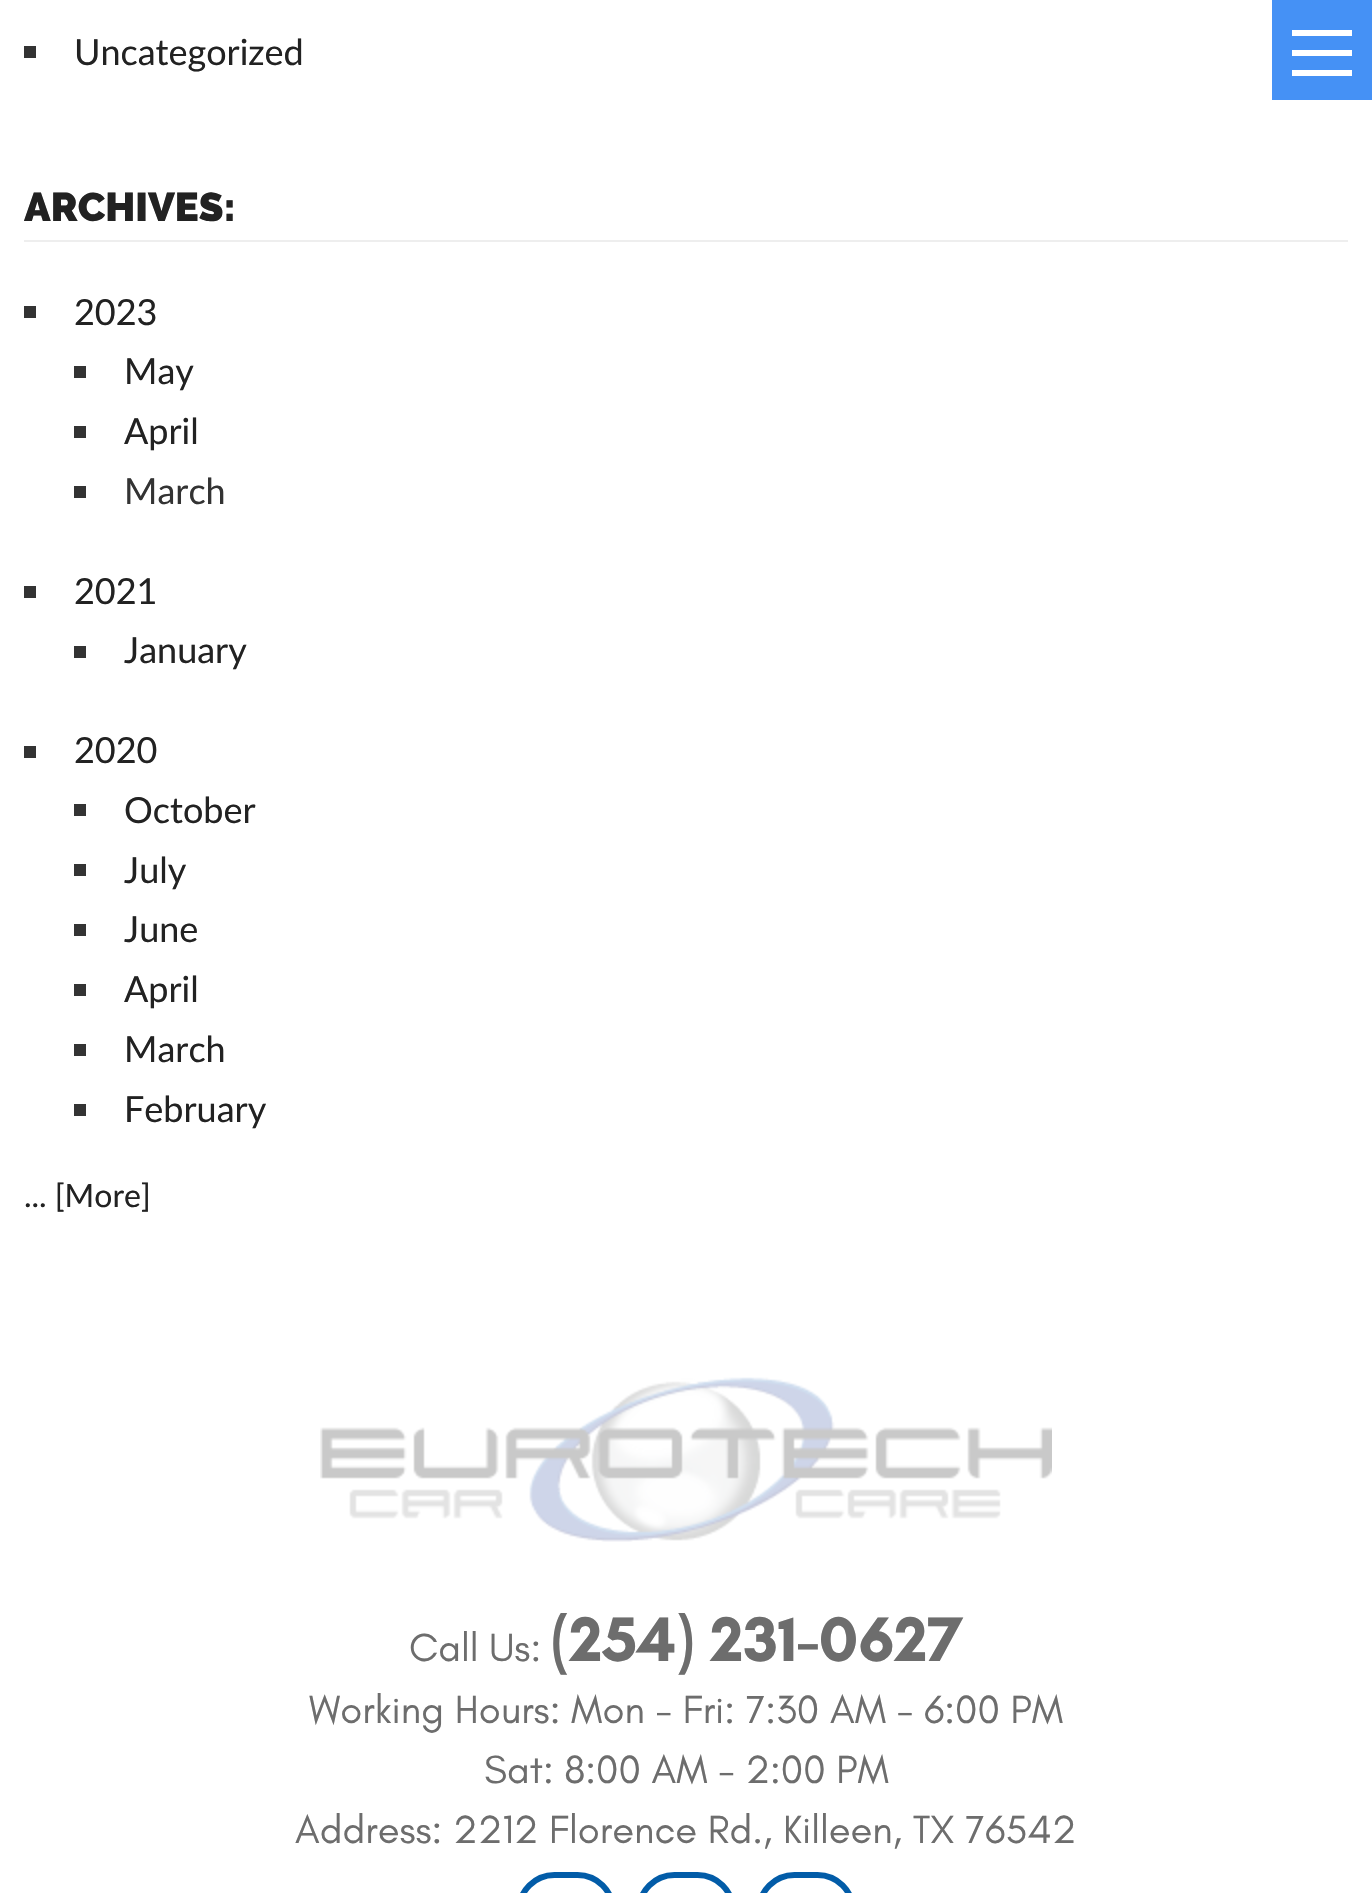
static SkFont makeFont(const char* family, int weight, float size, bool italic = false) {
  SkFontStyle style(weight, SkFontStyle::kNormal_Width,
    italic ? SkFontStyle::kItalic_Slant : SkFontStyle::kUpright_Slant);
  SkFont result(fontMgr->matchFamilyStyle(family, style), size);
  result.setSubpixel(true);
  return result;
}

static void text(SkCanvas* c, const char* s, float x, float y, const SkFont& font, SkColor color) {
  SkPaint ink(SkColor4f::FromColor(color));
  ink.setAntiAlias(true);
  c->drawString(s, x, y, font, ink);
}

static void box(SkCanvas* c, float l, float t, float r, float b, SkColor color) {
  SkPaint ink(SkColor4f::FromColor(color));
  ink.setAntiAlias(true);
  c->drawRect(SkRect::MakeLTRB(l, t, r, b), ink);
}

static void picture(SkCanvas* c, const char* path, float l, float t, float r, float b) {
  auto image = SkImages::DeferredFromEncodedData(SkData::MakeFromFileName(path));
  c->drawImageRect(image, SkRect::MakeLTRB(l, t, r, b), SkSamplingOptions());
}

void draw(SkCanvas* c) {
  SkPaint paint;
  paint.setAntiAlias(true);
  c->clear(0xffffffff);
  box(c, 24, 46, 36, 58, 0xff333333);
  SkFont face1 = makeFont("Lato", 400, 36);
  text(c, "Uncategorized", 74, 65, face1, 0xff222222);
  box(c, 24, 240, 1348, 242, 0xffeeeeee);
  SkFont face2 = makeFont("Raleway", 900, 40);
  text(c, "ARCHIVES:", 24, 221, face2, 0xff222222);
  box(c, 24, 306, 36, 318, 0xff333333);
  text(c, "2023", 74, 325, face1, 0xff222222);
  box(c, 74, 366, 86, 378, 0xff333333);
  text(c, "May", 124, 384, face1, 0xff222222);
  box(c, 74, 426, 86, 438, 0xff333333);
  text(c, "April", 124, 444, face1, 0xff222222);
  box(c, 74, 486, 86, 498, 0xff333333);
  text(c, "March", 124, 504, face1, 0xff333333);
  box(c, 24, 586, 36, 598, 0xff333333);
  text(c, "2021", 74, 604, face1, 0xff222222);
  box(c, 74, 646, 86, 658, 0xff333333);
  text(c, "January", 124, 663, face1, 0xff222222);
  box(c, 24, 746, 36, 758, 0xff333333);
  text(c, "2020", 74, 763, face1, 0xff222222);
  box(c, 74, 804, 86, 816, 0xff333333);
  text(c, "October", 124, 823, face1, 0xff222222);
  box(c, 74, 864, 86, 876, 0xff333333);
  text(c, "July", 124, 883, face1, 0xff222222);
  box(c, 74, 924, 86, 936, 0xff333333);
  text(c, "June", 124, 942, face1, 0xff222222);
  box(c, 74, 984, 86, 996, 0xff333333);
  text(c, "April", 124, 1002, face1, 0xff222222);
  box(c, 74, 1044, 86, 1056, 0xff333333);
  text(c, "March", 124, 1062, face1, 0xff222222);
  box(c, 74, 1104, 86, 1116, 0xff333333);
  text(c, "February", 124, 1122, face1, 0xff222222);
  SkFont face3 = makeFont("Lato", 400, 32);
  text(c, "... [More]", 24, 1207, face3, 0xff222222);
  box(c, 1272, 0, 1372, 100, 0xff4591f5);
  box(c, 1292, 50, 1352, 56, 0xffffffff);
  box(c, 1292, 30, 1352, 36, 0xffffffff);
  box(c, 1292, 70, 1352, 76, 0xffffffff);
  picture(c, "img_01.png", 320, 1377, 1052, 1542);
  SkFont face4 = makeFont("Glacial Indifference", 400, 40);
  text(c, "Call Us:", 409, 1661, face4, 0xff6d6d6d);
  SkFont face5 = makeFont("Glacial Indifference", 700, 64);
  text(c, "(254) 231-0627", 551, 1661, face5, 0xff6d6d6d);
  text(c, "Working Hours: Mon - Fri: 7:30 AM - 6:00 PM", 309, 1723, face4, 0xff6d6d6d);
  text(c, "Sat: 8:00 AM - 2:00 PM", 484, 1783, face4, 0xff6d6d6d);
  text(c, "Address: 2212 Florence Rd., Killeen, TX 76542", 295, 1843, face4, 0xff6d6d6d);
  paint.setStyle(SkPaint::kStroke_Style);
  paint.setStrokeWidth(6);
  paint.setColor(0xff025ca8);
  c->drawRoundRect(SkRect::MakeLTRB(519, 1875, 613, 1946), 47, 47, paint);
  c->drawRoundRect(SkRect::MakeLTRB(639, 1875, 733, 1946), 47, 47, paint);
  c->drawRoundRect(SkRect::MakeLTRB(759, 1875, 853, 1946), 47, 47, paint);
}
